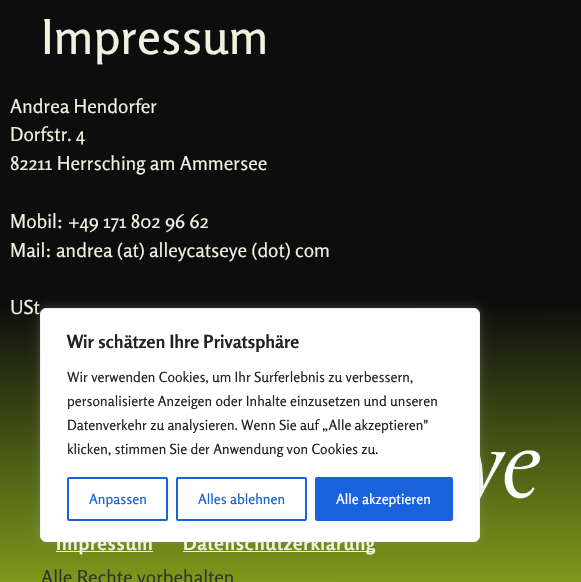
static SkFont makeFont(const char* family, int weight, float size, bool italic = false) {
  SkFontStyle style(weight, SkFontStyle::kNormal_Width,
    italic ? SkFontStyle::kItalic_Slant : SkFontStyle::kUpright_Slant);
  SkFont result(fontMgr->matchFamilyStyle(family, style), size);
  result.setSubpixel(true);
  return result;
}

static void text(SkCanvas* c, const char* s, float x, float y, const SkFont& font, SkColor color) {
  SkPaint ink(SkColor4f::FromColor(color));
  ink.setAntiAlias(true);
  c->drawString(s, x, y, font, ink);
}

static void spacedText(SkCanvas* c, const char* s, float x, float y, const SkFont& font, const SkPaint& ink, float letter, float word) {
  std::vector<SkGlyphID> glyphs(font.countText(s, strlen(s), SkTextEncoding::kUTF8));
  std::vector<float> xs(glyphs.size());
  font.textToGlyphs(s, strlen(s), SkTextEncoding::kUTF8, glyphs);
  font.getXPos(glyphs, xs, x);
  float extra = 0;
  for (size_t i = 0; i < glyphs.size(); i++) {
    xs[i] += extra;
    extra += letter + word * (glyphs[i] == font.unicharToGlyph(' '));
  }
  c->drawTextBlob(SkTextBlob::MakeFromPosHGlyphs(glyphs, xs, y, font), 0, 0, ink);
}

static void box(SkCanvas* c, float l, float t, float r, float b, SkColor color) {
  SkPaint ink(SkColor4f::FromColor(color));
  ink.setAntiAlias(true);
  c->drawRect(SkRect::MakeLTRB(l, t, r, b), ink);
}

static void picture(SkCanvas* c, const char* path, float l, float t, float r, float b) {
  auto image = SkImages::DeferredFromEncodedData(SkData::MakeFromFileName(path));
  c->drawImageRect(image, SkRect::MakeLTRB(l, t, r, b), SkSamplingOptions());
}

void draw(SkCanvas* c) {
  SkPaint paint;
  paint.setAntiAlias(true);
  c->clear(0xffffffff);
  {
    const SkColor colors[] = {0xff0d0d0d, 0xff88a61c};
    const float stops[] = {0.5f, 1};
    const SkPoint ends[] = {{290, 0}, {291, 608}};
    paint.setShader(SkGradientShader::MakeLinear(ends, colors, stops, 2, SkTileMode::kClamp));
    paint.setAlpha(255);
  }
  c->drawRect(SkRect::MakeLTRB(0, 0, 581, 582), paint);
  SkFont face1 = makeFont("Rosario", 500, 48);
  text(c, "Impressum", 41, 54, face1, 0xffeef2df);
  SkFont face2 = makeFont("Rosario", 400, 19.25f);
  text(c, "Andrea Hendorfer", 10, 113, face2, 0xffeef2df);
  text(c, "Dorfstr. 4", 10, 141, face2, 0xffeef2df);
  text(c, "82211 Herrsching am Ammersee", 10, 170, face2, 0xffeef2df);
  text(c, "Mobil: +49 171 802 96 62", 10, 228, face2, 0xffeef2df);
  text(c, "Mail: andrea (at) alleycatseye (dot) com", 10, 257, face2, 0xffeef2df);
  text(c, "USt", 10, 314, face2, 0xffeef2df);
  picture(c, "img_01.png", 480, 450, 541, 500);
  box(c, 56, 551, 153, 552, 0xffeef2df);
  box(c, 183, 551, 375, 552, 0xffeef2df);
  paint.setShader(nullptr);
  paint.setColor(0x4dacabab);
  paint.setMaskFilter(SkMaskFilter::MakeBlur(kNormal_SkBlurStyle, 5));
  c->drawRoundRect(SkRect::MakeLTRB(40, 307, 480, 541), 6, 6, paint);
  paint.setMaskFilter(nullptr);
  SkFont face3 = makeFont("Rosario", 700, 19.25f);
  paint.setColor(0xffeef2df);
  spacedText(c, "Impressum", 56, 550, face3, paint, 0.7f, 0);
  spacedText(c, "Datenschutzerklärung", 183, 550, face3, paint, 0.7f, 0);
  paint.setColor(0xffffffff);
  c->drawRoundRect(SkRect::MakeLTRB(40.5f, 308.5f, 479.5f, 541.5f), 5.5f, 5.5f, paint);
  paint.setStyle(SkPaint::kStroke_Style);
  paint.setStrokeWidth(1);
  paint.setColor(0xfff4f4f4);
  c->drawRoundRect(SkRect::MakeLTRB(40.5f, 308.5f, 479.5f, 541.5f), 5.5f, 5.5f, paint);
  SkFont face4 = makeFont("Rosario", 700, 18);
  text(c, "Wir schätzen Ihre Privatsphäre", 67, 348, face4, 0xff212121);
  SkFont face5 = makeFont("Rosario", 400, 14);
  text(c, "Wir verwenden Cookies, um Ihr Surferlebnis zu verbessern,", 67, 382, face5, 0xff212121);
  text(c, "personalisierte Anzeigen oder Inhalte einzusetzen und unseren", 67, 406, face5, 0xff212121);
  text(c, "Datenverkehr zu analysieren. Wenn Sie auf „Alle akzeptieren\"", 67, 430, face5, 0xff212121);
  text(c, "klicken, stimmen Sie der Anwendung von Cookies zu.", 67, 454, face5, 0xff212121);
  paint.setStrokeWidth(2);
  paint.setColor(0xff1863dc);
  c->drawRoundRect(SkRect::MakeLTRB(68, 478, 167, 520), 1, 1, paint);
  SkFont face6 = makeFont("Rosario", 500, 14);
  text(c, "Anpassen", 89, 504, face6, 0xff1863dc);
  c->drawRoundRect(SkRect::MakeLTRB(177, 478, 306, 520), 1, 1, paint);
  text(c, "Alles ablehnen", 198, 504, face6, 0xff1863dc);
  paint.setStyle(SkPaint::kFill_Style);
  c->drawRoundRect(SkRect::MakeLTRB(316, 478, 452, 520), 1, 1, paint);
  paint.setStyle(SkPaint::kStroke_Style);
  c->drawRoundRect(SkRect::MakeLTRB(316, 478, 452, 520), 1, 1, paint);
  text(c, "Alle akzeptieren", 336, 504, face6, 0xffffffff);
  text(c, "Alle Rechte vorbehalten", 41, 584, face2, 0xff333333);
}
